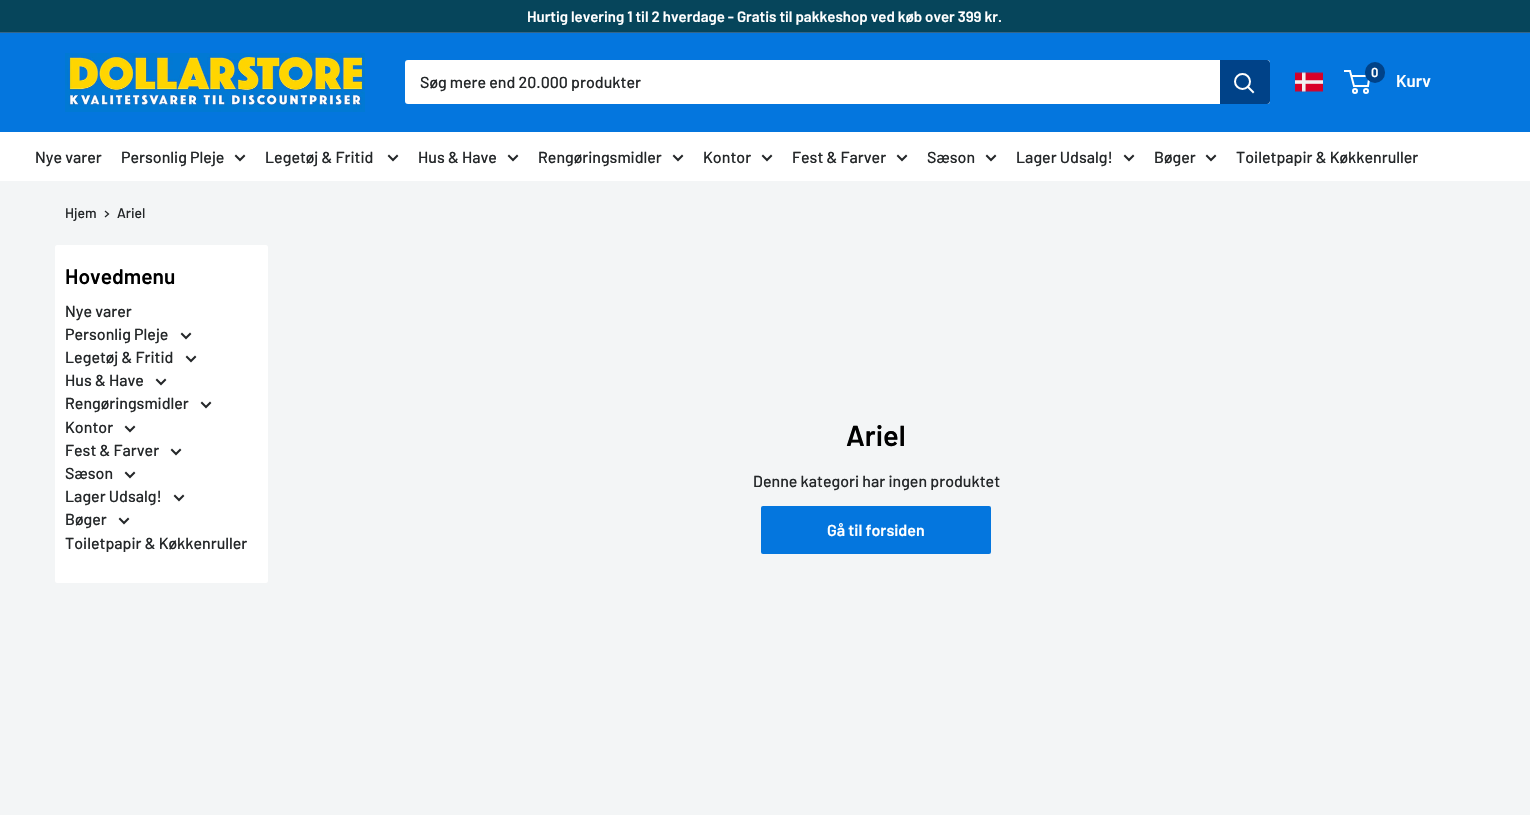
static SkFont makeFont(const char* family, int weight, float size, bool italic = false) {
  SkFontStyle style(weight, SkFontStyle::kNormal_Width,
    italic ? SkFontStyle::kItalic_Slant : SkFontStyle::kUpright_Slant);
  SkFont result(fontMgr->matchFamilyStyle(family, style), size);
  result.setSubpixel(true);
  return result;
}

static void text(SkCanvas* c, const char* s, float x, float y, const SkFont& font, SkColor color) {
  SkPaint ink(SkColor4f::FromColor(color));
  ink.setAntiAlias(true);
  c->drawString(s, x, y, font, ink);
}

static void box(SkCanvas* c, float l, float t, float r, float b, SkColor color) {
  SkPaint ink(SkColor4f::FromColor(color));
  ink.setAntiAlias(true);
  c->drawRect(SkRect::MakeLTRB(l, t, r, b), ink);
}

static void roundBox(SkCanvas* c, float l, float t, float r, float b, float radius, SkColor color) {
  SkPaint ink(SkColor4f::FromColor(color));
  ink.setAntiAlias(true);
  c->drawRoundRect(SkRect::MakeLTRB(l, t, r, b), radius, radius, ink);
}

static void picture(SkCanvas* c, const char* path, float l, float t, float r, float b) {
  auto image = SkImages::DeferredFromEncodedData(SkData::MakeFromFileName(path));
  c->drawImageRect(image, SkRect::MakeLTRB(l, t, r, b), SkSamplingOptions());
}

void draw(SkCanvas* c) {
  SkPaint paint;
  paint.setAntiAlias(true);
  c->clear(0xfff3f5f6);
  box(c, 0, 0, 1530, 32, 0xff06455b);
  box(c, 0, 32, 1530, 33, 0xff356587);
  SkFont face1 = makeFont("Barlow", 600, 15);
  text(c, "Hurtig levering 1 til 2 hverdage - Gratis til pakkeshop ved køb over 399 kr.", 527, 22, face1, 0xffffffff);
  box(c, 0, 33, 1530, 132, 0xff0476de);
  picture(c, "img_01.png", 65, 53, 365, 112);
  roundBox(c, 405, 60, 1270, 104, 3, 0xffffffff);
  SkFont face2 = makeFont("Barlow", 500, 16);
  text(c, "Søg mere end 20.000 produkter", 420, 88, face2, 0xff242729);
  paint.setColor(0xff004288);
  c->drawPath(SkPathBuilder().moveTo(1220, 60).lineTo(1267, 60).cubicTo(1268.5f, 60, 1270, 61.5f, 1270, 63).lineTo(1270, 101).cubicTo(1270, 102.5f, 1268.5f, 104, 1267, 104).lineTo(1220, 104).close().detach(), paint);
  paint.setStyle(SkPaint::kStroke_Style);
  paint.setStrokeWidth(2);
  paint.setStrokeCap(SkPaint::kSquare_Cap);
  paint.setColor(0xffffffff);
  c->drawPath(SkPathBuilder().moveTo(1253, 92).lineTo(1248, 87).detach(), paint);
  paint.setStrokeCap(SkPaint::kButt_Cap);
  c->drawCircle(1242.5f, 81.5f, 7.5f, paint);
  picture(c, "img_02.png", 1295, 72, 1323, 92);
  c->drawCircle(1355, 91, 2, paint);
  c->drawCircle(1366, 91, 2, paint);
  c->drawPath(SkPathBuilder().moveTo(1351.5f, 76).lineTo(1369.5f, 76).lineTo(1368, 86).lineTo(1354, 86).lineTo(1350, 71).lineTo(1344, 71).detach(), paint);
  roundBox(c, 1365, 62, 1385, 83, 10, 0xff004288);
  SkFont face3 = makeFont("Barlow", 600, 13);
  text(c, "0", 1371, 77, face3, 0xffffffff);
  SkFont face4 = makeFont("Barlow", 600, 17);
  text(c, "Kurv", 1396, 87, face4, 0xffffffff);
  box(c, 0, 132, 1530, 181, 0xffffffff);
  text(c, "Nye varer", 35, 163, face2, 0xff242729);
  text(c, "Personlig Pleje", 121, 163, face2, 0xff242729);
  paint.setStrokeCap(SkPaint::kSquare_Cap);
  paint.setColor(0xff242729);
  c->drawPath(SkPathBuilder().moveTo(244, 156).lineTo(240, 160).lineTo(236, 156).detach(), paint);
  text(c, "Legetøj & Fritid", 265, 163, face2, 0xff242729);
  c->drawPath(SkPathBuilder().moveTo(397, 156).lineTo(393, 160).lineTo(389, 156).detach(), paint);
  text(c, "Hus & Have", 418, 163, face2, 0xff242729);
  c->drawPath(SkPathBuilder().moveTo(517, 156).lineTo(513, 160).lineTo(509, 156).detach(), paint);
  text(c, "Rengøringsmidler", 538, 163, face2, 0xff242729);
  c->drawPath(SkPathBuilder().moveTo(682, 156).lineTo(678, 160).lineTo(674, 156).detach(), paint);
  text(c, "Kontor", 703, 163, face2, 0xff242729);
  c->drawPath(SkPathBuilder().moveTo(771, 156).lineTo(767, 160).lineTo(763, 156).detach(), paint);
  text(c, "Fest & Farver", 792, 163, face2, 0xff242729);
  c->drawPath(SkPathBuilder().moveTo(906, 156).lineTo(902, 160).lineTo(898, 156).detach(), paint);
  text(c, "Sæson", 927, 163, face2, 0xff242729);
  c->drawPath(SkPathBuilder().moveTo(995, 156).lineTo(991, 160).lineTo(987, 156).detach(), paint);
  text(c, "Lager Udsalg!", 1016, 163, face2, 0xff242729);
  c->drawPath(SkPathBuilder().moveTo(1133, 156).lineTo(1129, 160).lineTo(1125, 156).detach(), paint);
  text(c, "Bøger", 1154, 163, face2, 0xff242729);
  c->drawPath(SkPathBuilder().moveTo(1215, 156).lineTo(1211, 160).lineTo(1207, 156).detach(), paint);
  text(c, "Toiletpapir & Køkkenruller", 1236, 163, face2, 0xff242729);
  SkFont face5 = makeFont("Barlow", 500, 14);
  text(c, "Hjem", 65, 218, face5, 0xff242729);
  paint.setStrokeWidth(1.3f);
  c->drawPath(SkPathBuilder().moveTo(105.5f, 211.5f).lineTo(108.5f, 214).lineTo(105.5f, 216.5f).detach(), paint);
  text(c, "Ariel", 117, 218, face5, 0xff242729);
  paint.setStyle(SkPaint::kFill_Style);
  paint.setColor(0xffffffff);
  c->drawRoundRect(SkRect::MakeLTRB(54.5f, 244.5f, 268.5f, 583.5f), 2.5f, 2.5f, paint);
  paint.setStyle(SkPaint::kStroke_Style);
  paint.setStrokeWidth(1);
  paint.setStrokeCap(SkPaint::kButt_Cap);
  paint.setColor(0xfff3f5f6);
  c->drawRoundRect(SkRect::MakeLTRB(54.5f, 244.5f, 268.5f, 583.5f), 2.5f, 2.5f, paint);
  SkFont face6 = makeFont("Barlow", 600, 21);
  text(c, "Hovedmenu", 65, 284, face6, 0xff000000);
  text(c, "Nye varer", 65, 317, face2, 0xff242729);
  text(c, "Personlig Pleje", 65, 340, face2, 0xff242729);
  paint.setStrokeWidth(2);
  paint.setStrokeCap(SkPaint::kSquare_Cap);
  paint.setColor(0xff242729);
  c->drawPath(SkPathBuilder().moveTo(190, 334).lineTo(186, 338).lineTo(182, 334).moveTo(195, 357).lineTo(191, 361).lineTo(187, 357).moveTo(165, 380).lineTo(161, 384).lineTo(157, 380).detach(), paint);
  text(c, "Legetøj & Fritid", 65, 363, face2, 0xff242729);
  text(c, "Hus & Have", 65, 386, face2, 0xff242729);
  text(c, "Rengøringsmidler", 65, 409, face2, 0xff242729);
  c->drawPath(SkPathBuilder().moveTo(210, 403).lineTo(206, 407).lineTo(202, 403).detach(), paint);
  text(c, "Kontor", 65, 433, face2, 0xff242729);
  c->drawPath(SkPathBuilder().moveTo(134, 427).lineTo(130, 431).lineTo(126, 427).moveTo(180, 450).lineTo(176, 454).lineTo(172, 450).moveTo(134, 473).lineTo(130, 477).lineTo(126, 473).detach(), paint);
  text(c, "Fest & Farver", 65, 456, face2, 0xff242729);
  text(c, "Sæson", 65, 479, face2, 0xff242729);
  text(c, "Lager Udsalg!", 65, 502, face2, 0xff242729);
  c->drawPath(SkPathBuilder().moveTo(183, 496).lineTo(179, 500).lineTo(175, 496).detach(), paint);
  text(c, "Bøger", 65, 525, face2, 0xff242729);
  c->drawPath(SkPathBuilder().moveTo(128, 519).lineTo(124, 523).lineTo(120, 519).detach(), paint);
  text(c, "Toiletpapir & Køkkenruller", 65, 549, face2, 0xff242729);
  SkFont face7 = makeFont("Barlow", 600, 29);
  text(c, "Ariel", 846, 446, face7, 0xff000000);
  text(c, "Denne kategori har ingen produktet", 753, 487, face2, 0xff242729);
  roundBox(c, 761, 506, 991, 554, 2, 0xff0476de);
  SkFont face8 = makeFont("Barlow", 600, 16);
  text(c, "Gå til forsiden", 827, 536, face8, 0xffffffff);
}
